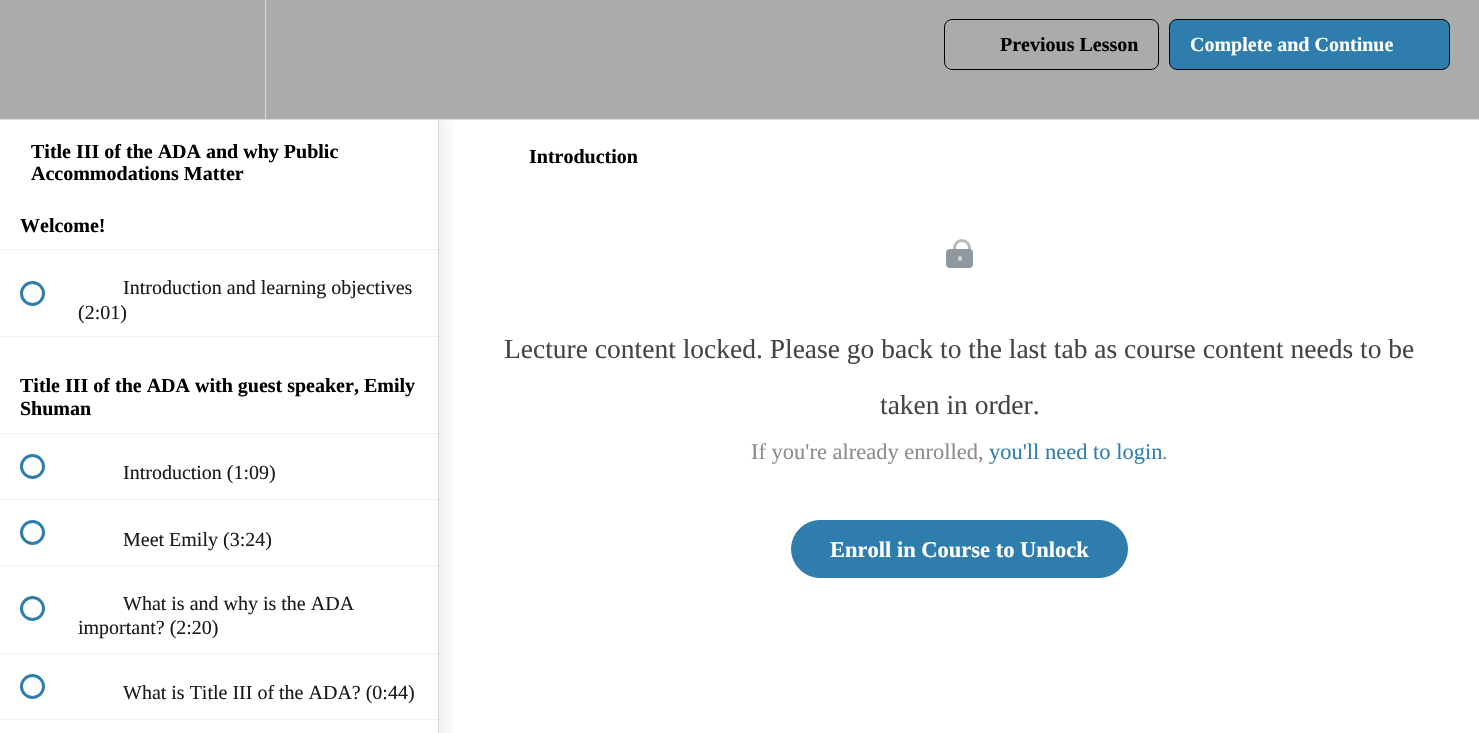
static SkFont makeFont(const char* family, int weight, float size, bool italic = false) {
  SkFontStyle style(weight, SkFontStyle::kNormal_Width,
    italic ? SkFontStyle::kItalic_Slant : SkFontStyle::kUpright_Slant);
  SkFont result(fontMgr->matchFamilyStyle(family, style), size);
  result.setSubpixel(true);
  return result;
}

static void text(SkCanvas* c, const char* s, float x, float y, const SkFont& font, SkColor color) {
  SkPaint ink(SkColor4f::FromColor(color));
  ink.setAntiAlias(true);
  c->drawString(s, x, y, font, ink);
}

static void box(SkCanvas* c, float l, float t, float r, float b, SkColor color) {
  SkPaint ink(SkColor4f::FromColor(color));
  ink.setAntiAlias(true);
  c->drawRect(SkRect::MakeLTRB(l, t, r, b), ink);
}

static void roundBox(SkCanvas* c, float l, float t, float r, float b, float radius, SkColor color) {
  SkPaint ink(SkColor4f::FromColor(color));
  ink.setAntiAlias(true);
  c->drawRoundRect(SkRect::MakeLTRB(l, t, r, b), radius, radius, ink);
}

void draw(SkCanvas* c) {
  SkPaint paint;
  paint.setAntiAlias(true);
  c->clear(0xffffffff);
  c->save();
  c->clipRect(SkRect::MakeLTRB(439, 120, 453, 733));
  paint.setColor(0x2620272d);
  paint.setMaskFilter(SkMaskFilter::MakeBlur(kNormal_SkBlurStyle, 12.5f));
  c->drawRect(SkRect::MakeLTRB(0, 116, 439, 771), paint);
  paint.setMaskFilter(nullptr);
  c->restore();
  box(c, 0, 0, 1479, 119, 0xffaaabaa);
  box(c, 0, 119, 1479, 120, 0xffd7dadb);
  box(c, 265, 0, 266, 119, 0xffd7dadb);
  paint.setStyle(SkPaint::kStroke_Style);
  paint.setStrokeWidth(1);
  paint.setColor(0xff000000);
  c->drawRoundRect(SkRect::MakeLTRB(944.5f, 19.5f, 1158.5f, 69.5f), 7.5f, 7.5f, paint);
  SkFont face1 = makeFont("Liberation Serif", 700, 20);
  text(c, "Previous Lesson", 1000, 51, face1, 0xff000000);
  paint.setStyle(SkPaint::kFill_Style);
  paint.setColor(0xff2f7dad);
  c->drawRoundRect(SkRect::MakeLTRB(1169.5f, 19.5f, 1449.5f, 69.5f), 7.5f, 7.5f, paint);
  paint.setStyle(SkPaint::kStroke_Style);
  paint.setColor(0xff000000);
  c->drawRoundRect(SkRect::MakeLTRB(1169.5f, 19.5f, 1449.5f, 69.5f), 7.5f, 7.5f, paint);
  text(c, "Complete and Continue", 1190, 51, face1, 0xffffffff);
  box(c, 438, 120, 439, 733, 0xffd7dadb);
  text(c, "Title III of the ADA and why Public", 31, 158, face1, 0xff000000);
  text(c, "Accommodations Matter", 31, 180, face1, 0xff000000);
  box(c, 0, 249, 438, 250, 0xffeaf2f7);
  text(c, "Welcome!", 20, 232, face1, 0xff000000);
  box(c, 0, 336, 438, 337, 0xffeaf2f7);
  paint.setStrokeWidth(3);
  paint.setColor(0xff2f7dad);
  c->drawCircle(32.5f, 293.5f, 11, paint);
  SkFont face2 = makeFont("Liberation Serif", 400, 20);
  text(c, "Introduction and learning objectives", 123, 294, face2, 0xff1a1a1a);
  text(c, "(2:01)", 78, 319, face2, 0xff1a1a1a);
  box(c, 0, 433, 438, 434, 0xffeaf2f7);
  text(c, "Title III of the ADA with guest speaker, Emily", 20, 392, face1, 0xff000000);
  text(c, "Shuman", 20, 415, face1, 0xff000000);
  box(c, 0, 499, 438, 500, 0xffeaf2f7);
  c->drawCircle(32.5f, 466.5f, 11, paint);
  text(c, "Introduction (1:09)", 123, 479, face2, 0xff1a1a1a);
  box(c, 0, 565, 438, 566, 0xffeaf2f7);
  c->drawCircle(32.5f, 532.5f, 11, paint);
  text(c, "Meet Emily (3:24)", 123, 546, face2, 0xff1a1a1a);
  box(c, 0, 653, 438, 654, 0xffeaf2f7);
  c->drawCircle(32.5f, 608.5f, 11, paint);
  text(c, "What is and why is the ADA", 123, 610, face2, 0xff1a1a1a);
  text(c, "important? (2:20)", 78, 634, face2, 0xff1a1a1a);
  box(c, 0, 719, 438, 720, 0xffeaf2f7);
  c->drawCircle(32.5f, 686.5f, 11, paint);
  text(c, "What is Title III of the ADA? (0:44)", 123, 699, face2, 0xff1a1a1a);
  text(c, "Introduction", 529, 163, face1, 0xff000000);
  paint.setColor(0xffb5babf);
  c->drawRoundRect(SkRect::MakeLTRB(954.5f, 240.5f, 969.5f, 264.5f), 7.5f, 7.5f, paint);
  roundBox(c, 946, 249, 973, 268, 4, 0xff8f989f);
  roundBox(c, 958, 256, 962, 261, 2, 0xffd3d7dc);
  SkFont face3 = makeFont("Liberation Serif", 400, 27.5f);
  text(c, "Lecture content locked. Please go back to the last tab as course content needs to be", 504, 358, face3, 0xff454545);
  text(c, "taken in order.", 880, 414, face3, 0xff454545);
  SkFont face4 = makeFont("Liberation Serif", 400, 22.5f);
  text(c, "If you're already enrolled,", 751, 459, face4, 0xff8b8b8b);
  text(c, "you'll need to login", 989, 459, face4, 0xff2f7dad);
  text(c, ".", 1162, 459, face4, 0xff8b8b8b);
  paint.setStyle(SkPaint::kFill_Style);
  paint.setColor(0xff2f7dad);
  c->drawRoundRect(SkRect::MakeLTRB(791.5f, 520.5f, 1127.5f, 577.5f), 28.5f, 28.5f, paint);
  paint.setStyle(SkPaint::kStroke_Style);
  paint.setStrokeWidth(1);
  c->drawRoundRect(SkRect::MakeLTRB(791.5f, 520.5f, 1127.5f, 577.5f), 28.5f, 28.5f, paint);
  SkFont face5 = makeFont("Liberation Serif", 700, 22.5f);
  text(c, "Enroll in Course to Unlock", 830, 557, face5, 0xffffffff);
}
